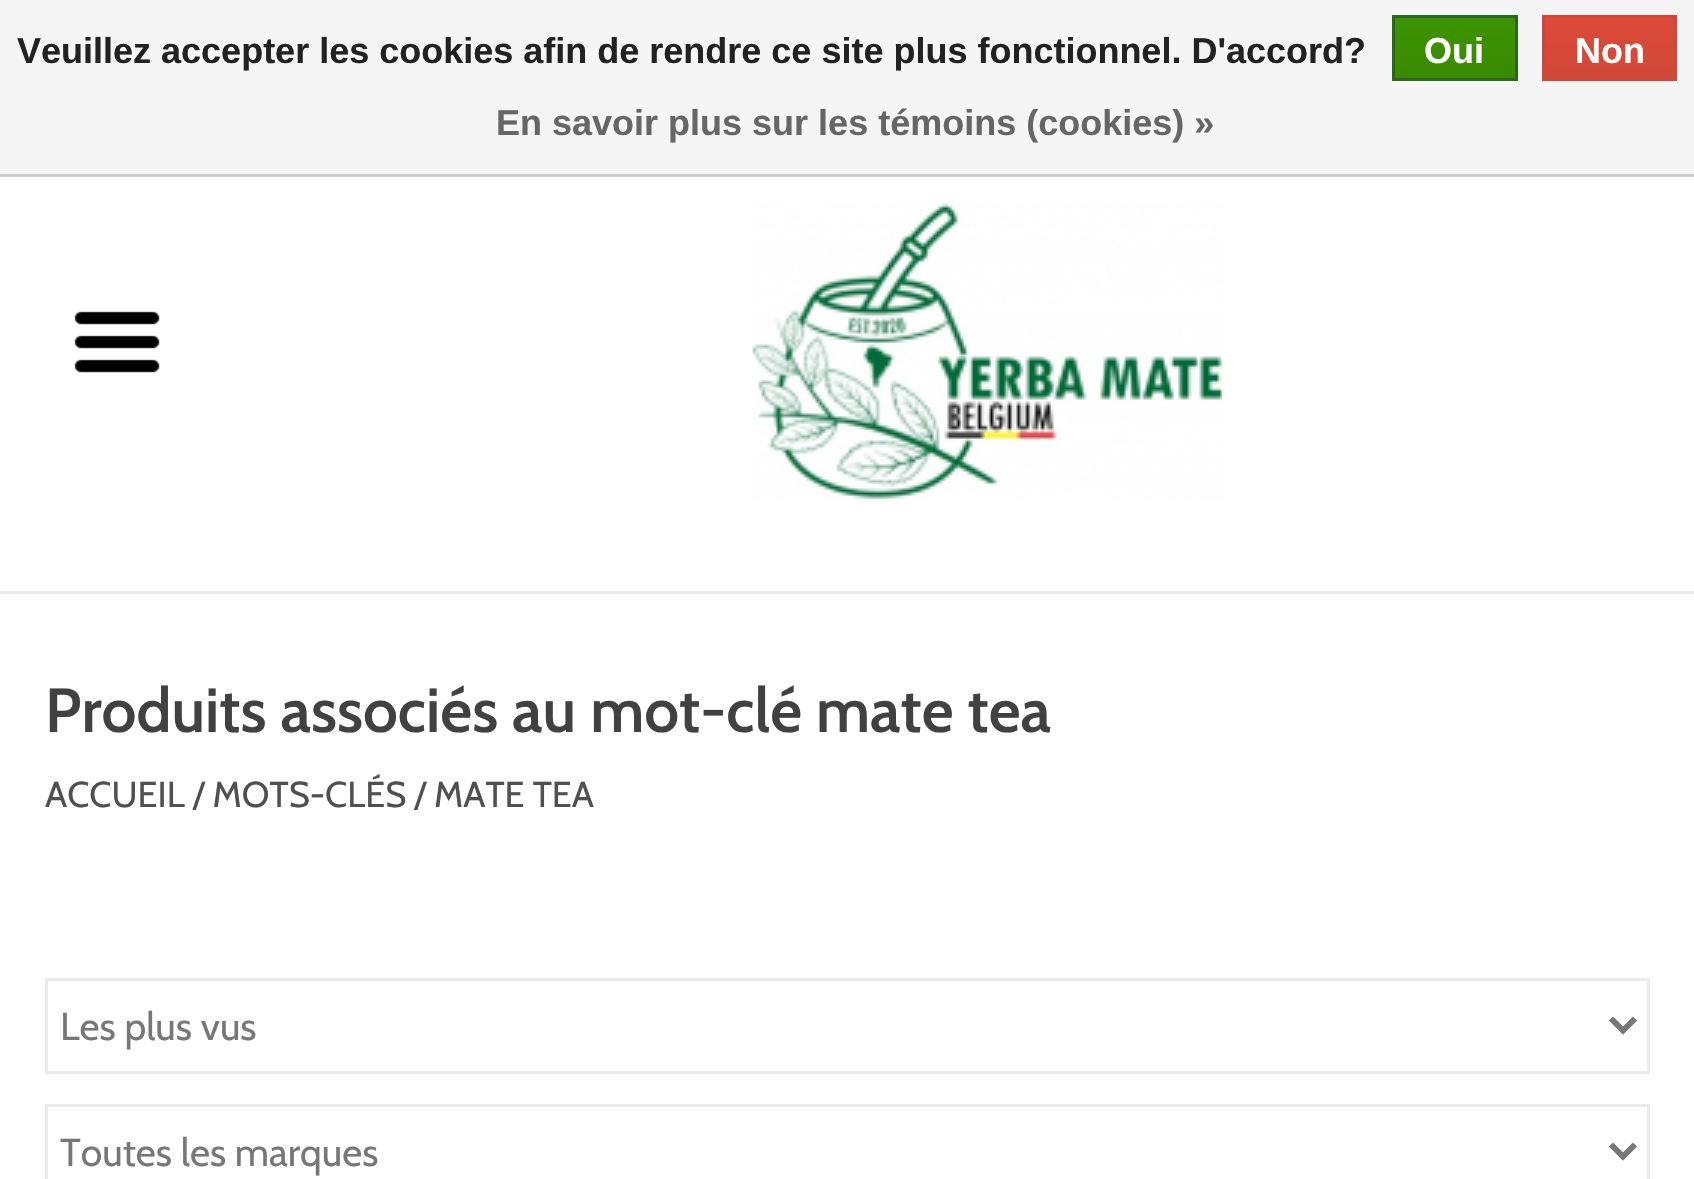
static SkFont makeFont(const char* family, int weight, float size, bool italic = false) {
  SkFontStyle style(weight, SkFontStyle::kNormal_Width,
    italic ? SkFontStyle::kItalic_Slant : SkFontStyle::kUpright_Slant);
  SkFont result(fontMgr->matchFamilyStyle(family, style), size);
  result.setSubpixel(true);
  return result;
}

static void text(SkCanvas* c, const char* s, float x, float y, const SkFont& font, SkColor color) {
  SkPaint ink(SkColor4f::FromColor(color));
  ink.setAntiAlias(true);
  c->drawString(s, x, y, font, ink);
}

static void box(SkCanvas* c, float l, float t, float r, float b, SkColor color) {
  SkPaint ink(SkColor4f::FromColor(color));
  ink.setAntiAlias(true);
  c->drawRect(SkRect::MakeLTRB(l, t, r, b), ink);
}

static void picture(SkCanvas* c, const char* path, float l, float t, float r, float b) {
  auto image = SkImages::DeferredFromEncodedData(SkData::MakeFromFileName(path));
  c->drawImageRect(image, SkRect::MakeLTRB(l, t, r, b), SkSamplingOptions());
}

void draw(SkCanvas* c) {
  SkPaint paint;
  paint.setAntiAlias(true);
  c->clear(0xffffffff);
  box(c, 0, 0, 1694, 174, 0xfff5f5f5);
  box(c, 0, 174, 1694, 177, 0xffcccccc);
  SkFont face1 = makeFont("Liberation Sans", 700, 36);
  text(c, "Veuillez accepter les cookies afin de rendre ce site plus fonctionnel. D'accord?", 17, 63, face1, 0xff222222);
  {
    const SkColor colors[] = {0xff3c9300, 0xff398a00};
    const float stops[] = {0, 1};
    const SkPoint ends[] = {{1455, 18}, {1455, 78}};
    paint.setShader(SkGradientShader::MakeLinear(ends, colors, stops, 2, SkTileMode::kClamp));
    paint.setAlpha(255);
  }
  c->drawRect(SkRect::MakeLTRB(1395, 18, 1515, 78), paint);
  paint.setStyle(SkPaint::kStroke_Style);
  paint.setStrokeWidth(3);
  paint.setShader(nullptr);
  paint.setColor(0xff29691d);
  c->drawRect(SkRect::MakeLTRB(1393.5f, 16.5f, 1516.5f, 79.5f), paint);
  text(c, "Oui", 1424, 63, face1, 0xffffffff);
  paint.setStyle(SkPaint::kFill_Style);
  {
    const SkColor colors[] = {0xffdc4a38, 0xffd14836};
    const float stops[] = {0, 1};
    const SkPoint ends[] = {{1610, 18}, {1610, 78}};
    paint.setShader(SkGradientShader::MakeLinear(ends, colors, stops, 2, SkTileMode::kClamp));
    paint.setAlpha(255);
  }
  c->drawRect(SkRect::MakeLTRB(1545, 18, 1674, 78), paint);
  paint.setStyle(SkPaint::kStroke_Style);
  paint.setShader(nullptr);
  paint.setColor(0xffd14836);
  c->drawRect(SkRect::MakeLTRB(1543.5f, 16.5f, 1675.5f, 79.5f), paint);
  text(c, "Non", 1575, 63, face1, 0xffffffff);
  text(c, "En savoir plus sur les témoins (cookies) »", 496, 135, face1, 0xff666666);
  box(c, 0, 591, 1694, 594, 0xffeaeaea);
  picture(c, "img_01.png", 752, 201, 1225, 501);
  picture(c, "img_02.png", 74, 311, 160, 373);
  SkFont face2 = makeFont("Cabin", 600, 62);
  text(c, "Produits associés au mot-clé mate tea", 45, 732, face2, 0xff414141);
  SkFont face3 = makeFont("Cabin", 400, 36);
  text(c, "ACCUEIL / MOTS-CLÉS / MATE TEA", 45, 807, face3, 0xff505050);
  paint.setColor(0xffeaeaea);
  c->drawRect(SkRect::MakeLTRB(46.5f, 979.5f, 1648.5f, 1072.5f), paint);
  paint.setStrokeWidth(6);
  paint.setColor(0xff777777);
  c->drawPath(SkPathBuilder().moveTo(1611, 1018.5f).lineTo(1623, 1030.5f).lineTo(1635, 1018.5f).detach(), paint);
  SkFont face4 = makeFont("Cabin", 400, 39);
  text(c, "Les plus vus", 60, 1040, face4, 0xff777777);
  paint.setStrokeWidth(3);
  paint.setColor(0xffeaeaea);
  c->drawRect(SkRect::MakeLTRB(46.5f, 1105.5f, 1648.5f, 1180.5f), paint);
  paint.setStrokeWidth(6);
  paint.setColor(0xff777777);
  c->drawPath(SkPathBuilder().moveTo(1611, 1144.5f).lineTo(1623, 1156.5f).lineTo(1635, 1144.5f).detach(), paint);
  text(c, "Toutes les marques", 60, 1166, face4, 0xff777777);
}
